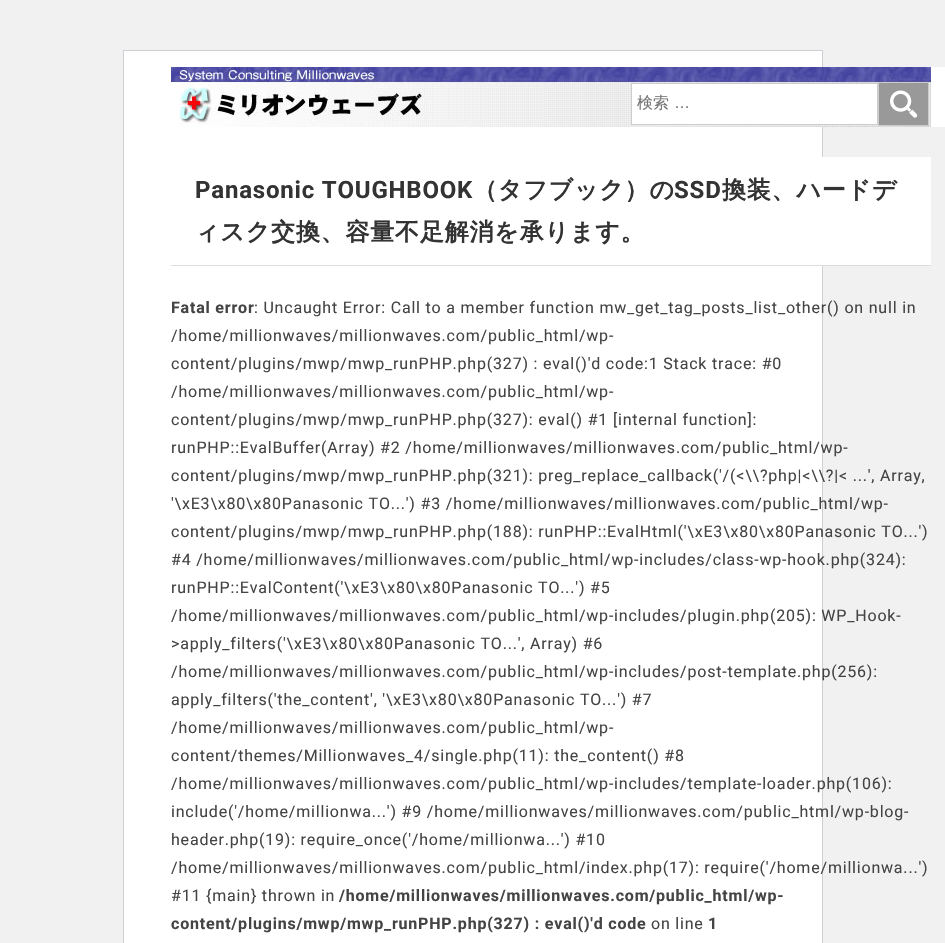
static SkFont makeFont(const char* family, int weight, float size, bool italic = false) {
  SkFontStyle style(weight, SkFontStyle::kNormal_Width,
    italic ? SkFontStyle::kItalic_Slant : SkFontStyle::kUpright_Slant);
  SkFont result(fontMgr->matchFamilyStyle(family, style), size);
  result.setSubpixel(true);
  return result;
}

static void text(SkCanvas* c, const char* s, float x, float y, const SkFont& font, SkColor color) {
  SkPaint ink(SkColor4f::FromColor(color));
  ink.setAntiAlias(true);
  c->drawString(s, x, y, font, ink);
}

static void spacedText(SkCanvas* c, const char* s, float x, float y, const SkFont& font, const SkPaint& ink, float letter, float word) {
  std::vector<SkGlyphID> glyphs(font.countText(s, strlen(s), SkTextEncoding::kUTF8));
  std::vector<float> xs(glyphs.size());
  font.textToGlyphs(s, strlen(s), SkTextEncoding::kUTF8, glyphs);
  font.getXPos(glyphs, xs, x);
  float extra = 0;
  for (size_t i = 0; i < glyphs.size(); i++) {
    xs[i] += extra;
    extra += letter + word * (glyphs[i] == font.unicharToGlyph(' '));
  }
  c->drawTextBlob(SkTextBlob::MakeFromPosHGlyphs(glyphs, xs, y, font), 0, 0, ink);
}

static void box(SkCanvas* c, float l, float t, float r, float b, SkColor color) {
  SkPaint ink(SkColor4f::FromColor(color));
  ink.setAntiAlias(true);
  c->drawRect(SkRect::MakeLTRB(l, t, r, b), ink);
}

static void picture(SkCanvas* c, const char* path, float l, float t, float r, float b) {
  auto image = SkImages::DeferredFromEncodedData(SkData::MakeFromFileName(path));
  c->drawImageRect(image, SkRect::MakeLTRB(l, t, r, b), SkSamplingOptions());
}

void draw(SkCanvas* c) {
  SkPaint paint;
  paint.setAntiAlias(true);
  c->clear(0xfff1f1f1);
  paint.setColor(0xffffffff);
  c->drawRect(SkRect::MakeLTRB(123.5f, 50.5f, 822.5f, 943.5f), paint);
  paint.setStyle(SkPaint::kStroke_Style);
  paint.setStrokeWidth(1);
  paint.setColor(0xffccd0d4);
  c->drawRect(SkRect::MakeLTRB(123.5f, 50.5f, 822.5f, 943.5f), paint);
  box(c, 822, 67, 945, 127, 0xffffffff);
  picture(c, "img_01.png", 171, 67, 931, 127);
  paint.setStyle(SkPaint::kFill_Style);
  paint.setColor(0xffffffff);
  c->drawRect(SkRect::MakeLTRB(631.5f, 83.5f, 877.5f, 124.5f), paint);
  paint.setStyle(SkPaint::kStroke_Style);
  paint.setColor(0xffcccccc);
  c->drawRect(SkRect::MakeLTRB(631.5f, 83.5f, 877.5f, 124.5f), paint);
  SkFont face1 = makeFont("WenQuanYi Zen Hei", 500, 16);
  text(c, "検索", 637, 108, face1, 0xff757575);
  SkFont face2 = makeFont("Liberation Sans", 400, 16);
  text(c, "…", 674, 108, face2, 0xff757575);
  paint.setStyle(SkPaint::kFill_Style);
  paint.setColor(0xff999999);
  c->drawRect(SkRect::MakeLTRB(878.5f, 82.5f, 928.5f, 125.5f), paint);
  paint.setStyle(SkPaint::kStroke_Style);
  paint.setColor(0xffcccccc);
  c->drawRect(SkRect::MakeLTRB(878.5f, 82.5f, 928.5f, 125.5f), paint);
  picture(c, "img_02.png", 890, 90, 918, 118);
  box(c, 822, 157, 931, 265, 0xffffffff);
  box(c, 171, 265, 931, 266, 0xffdddddd);
  SkFont face3 = makeFont("Roboto", 700, 24);
  paint.setStyle(SkPaint::kFill_Style);
  paint.setColor(0xff333333);
  spacedText(c, "Panasonic TOUGHBOOK", 195, 198, face3, paint, 0.8f, 0);
  SkFont face4 = makeFont("WenQuanYi Zen Hei", 700, 24);
  spacedText(c, "（タフブック）の", 473, 198, face4, paint, 0.8f, 0);
  spacedText(c, "SSD", 674, 198, face3, paint, 0.8f, 0);
  spacedText(c, "換装、ハードデ", 722, 198, face4, paint, 0.8f, 0);
  spacedText(c, "ィスク交換、容量不足解消を承ります。", 195, 240, face4, paint, 0.8f, 0);
  SkFont face5 = makeFont("Roboto", 700, 16);
  paint.setColor(0xff444444);
  spacedText(c, "Fatal error", 171, 313, face5, paint, 0.8f, 0);
  SkFont face6 = makeFont("Roboto", 400, 16);
  spacedText(c, ": Uncaught Error: Call to a member function mw_get_tag_posts_list_other() on null in", 254, 313, face6, paint, 0.8f, 0);
  spacedText(c, "/home/millionwaves/millionwaves.com/public_html/wp-", 171, 341, face6, paint, 0.8f, 0);
  spacedText(c, "content/plugins/mwp/mwp_runPHP.php(327) : eval()'d code:1 Stack trace: #0", 171, 369, face6, paint, 0.8f, 0);
  spacedText(c, "/home/millionwaves/millionwaves.com/public_html/wp-", 171, 397, face6, paint, 0.8f, 0);
  spacedText(c, "content/plugins/mwp/mwp_runPHP.php(327): eval() #1 [internal function]:", 171, 425, face6, paint, 0.8f, 0);
  spacedText(c, "runPHP::EvalBuffer(Array) #2 /home/millionwaves/millionwaves.com/public_html/wp-", 171, 453, face6, paint, 0.8f, 0);
  spacedText(c, "content/plugins/mwp/mwp_runPHP.php(321): preg_replace_callback('/(<\\\\?php|<\\\\?|< ...', Array,", 171, 481, face6, paint, 0.8f, 0);
  spacedText(c, "'\\xE3\\x80\\x80Panasonic TO...') #3 /home/millionwaves/millionwaves.com/public_html/wp-", 171, 509, face6, paint, 0.8f, 0);
  spacedText(c, "content/plugins/mwp/mwp_runPHP.php(188): runPHP::EvalHtml('\\xE3\\x80\\x80Panasonic TO...')", 171, 537, face6, paint, 0.8f, 0);
  spacedText(c, "#4 /home/millionwaves/millionwaves.com/public_html/wp-includes/class-wp-hook.php(324):", 171, 565, face6, paint, 0.8f, 0);
  spacedText(c, "runPHP::EvalContent('\\xE3\\x80\\x80Panasonic TO...') #5", 171, 593, face6, paint, 0.8f, 0);
  spacedText(c, "/home/millionwaves/millionwaves.com/public_html/wp-includes/plugin.php(205): WP_Hook-", 171, 621, face6, paint, 0.8f, 0);
  spacedText(c, ">apply_filters('\\xE3\\x80\\x80Panasonic TO...', Array) #6", 171, 649, face6, paint, 0.8f, 0);
  spacedText(c, "/home/millionwaves/millionwaves.com/public_html/wp-includes/post-template.php(256):", 171, 677, face6, paint, 0.8f, 0);
  spacedText(c, "apply_filters('the_content', '\\xE3\\x80\\x80Panasonic TO...') #7", 171, 705, face6, paint, 0.8f, 0);
  spacedText(c, "/home/millionwaves/millionwaves.com/public_html/wp-", 171, 733, face6, paint, 0.8f, 0);
  spacedText(c, "content/themes/Millionwaves_4/single.php(11): the_content() #8", 171, 761, face6, paint, 0.8f, 0);
  spacedText(c, "/home/millionwaves/millionwaves.com/public_html/wp-includes/template-loader.php(106):", 171, 789, face6, paint, 0.8f, 0);
  spacedText(c, "include('/home/millionwa...') #9 /home/millionwaves/millionwaves.com/public_html/wp-blog-", 171, 817, face6, paint, 0.8f, 0);
  spacedText(c, "header.php(19): require_once('/home/millionwa...') #10", 171, 845, face6, paint, 0.8f, 0);
  spacedText(c, "/home/millionwaves/millionwaves.com/public_html/index.php(17): require('/home/millionwa...')", 171, 873, face6, paint, 0.8f, 0);
  spacedText(c, "#11 {main} thrown in", 171, 901, face6, paint, 0.8f, 0);
  spacedText(c, "/home/millionwaves/millionwaves.com/public_html/wp-", 339, 901, face5, paint, 0.8f, 0);
  spacedText(c, "content/plugins/mwp/mwp_runPHP.php(327) : eval()'d code", 171, 929, face5, paint, 0.8f, 0);
  spacedText(c, "on line", 651, 929, face6, paint, 0.8f, 0);
  spacedText(c, "1", 708, 929, face5, paint, 0.8f, 0);
}
